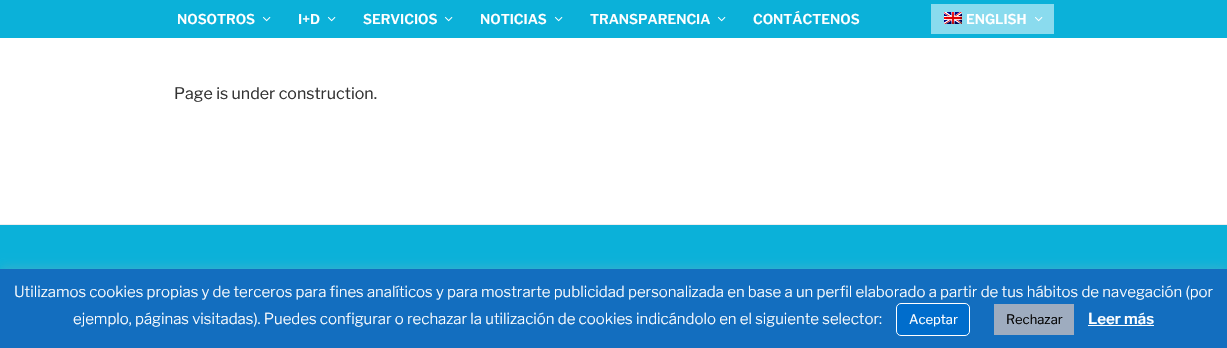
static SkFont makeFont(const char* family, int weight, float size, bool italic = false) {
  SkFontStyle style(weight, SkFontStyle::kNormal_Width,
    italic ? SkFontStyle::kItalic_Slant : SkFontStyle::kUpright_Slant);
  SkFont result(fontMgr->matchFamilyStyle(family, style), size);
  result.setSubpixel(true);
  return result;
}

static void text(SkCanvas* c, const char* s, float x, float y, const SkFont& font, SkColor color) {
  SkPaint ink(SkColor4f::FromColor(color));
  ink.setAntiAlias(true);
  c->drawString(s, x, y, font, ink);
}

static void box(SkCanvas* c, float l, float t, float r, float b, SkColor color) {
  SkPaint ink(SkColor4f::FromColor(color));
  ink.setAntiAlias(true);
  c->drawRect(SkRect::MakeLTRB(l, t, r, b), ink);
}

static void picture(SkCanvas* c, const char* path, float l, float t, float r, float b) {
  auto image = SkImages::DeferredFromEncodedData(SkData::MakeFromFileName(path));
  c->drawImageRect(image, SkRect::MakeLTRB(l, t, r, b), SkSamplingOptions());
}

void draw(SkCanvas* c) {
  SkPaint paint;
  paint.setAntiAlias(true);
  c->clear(0xffffffff);
  box(c, 0, 0, 1227, 38, 0xff0bb1d9);
  SkFont face1 = makeFont("Libre Franklin", 600, 13.5f);
  text(c, "NOSOTROS", 177, 24, face1, 0xffffffff);
  picture(c, "img_01.png", 262, 16, 271, 22);
  text(c, "I+D", 298, 24, face1, 0xffffffff);
  picture(c, "img_01.png", 327, 16, 336, 22);
  text(c, "SERVICIOS", 363, 24, face1, 0xffffffff);
  picture(c, "img_01.png", 444, 16, 453, 22);
  text(c, "NOTICIAS", 480, 24, face1, 0xffffffff);
  picture(c, "img_01.png", 554, 16, 563, 22);
  text(c, "TRANSPARENCIA", 590, 24, face1, 0xffffffff);
  picture(c, "img_01.png", 717, 16, 726, 22);
  text(c, "CONTÁCTENOS", 753, 24, face1, 0xffffffff);
  box(c, 931, 4, 1054, 34, 0xff8adbee);
  picture(c, "img_02.png", 944, 12, 962, 24);
  text(c, "ENGLISH", 966, 24, face1, 0xffffffff);
  picture(c, "img_03.png", 1035, 17, 1043, 22);
  SkFont face2 = makeFont("Libre Franklin", 400, 16);
  text(c, "Page is under construction.", 174, 99, face2, 0xff333333);
  box(c, 0, 225, 1227, 269, 0xff0bb1d9);
  box(c, 0, 224, 1227, 225, 0xffeeeeee);
  paint.setColor(0x4dacabab);
  paint.setMaskFilter(SkMaskFilter::MakeBlur(kNormal_SkBlurStyle, 5));
  c->drawRect(SkRect::MakeLTRB(0, 268, 1227, 347), paint);
  paint.setMaskFilter(nullptr);
  box(c, 0, 269, 1227, 348, 0xff136ebf);
  SkFont face3 = makeFont("Libre Franklin", 300, 15);
  text(c, "Utilizamos cookies propias y de terceros para fines analíticos y para mostrarte publicidad personalizada en base a un perfil elaborado a partir de tus hábitos de navegación (por", 14, 297, face3, 0xffffffff);
  text(c, "ejemplo, páginas visitadas). Puedes configurar o rechazar la utilización de cookies indicándolo en el siguiente selector:", 73, 324, face3, 0xffffffff);
  paint.setColor(0xff006dcc);
  c->drawRoundRect(SkRect::MakeLTRB(896.5f, 303.5f, 969.5f, 335.5f), 4.5f, 4.5f, paint);
  paint.setStyle(SkPaint::kStroke_Style);
  paint.setStrokeWidth(1);
  paint.setColor(0xffffffff);
  c->drawRoundRect(SkRect::MakeLTRB(896.5f, 303.5f, 969.5f, 335.5f), 4.5f, 4.5f, paint);
  SkFont face4 = makeFont("Libre Franklin", 400, 13);
  text(c, "Aceptar", 909, 324, face4, 0xffffffff);
  box(c, 994, 304, 1074, 335, 0xff9eacbf);
  text(c, "Rechazar", 1006, 324, face4, 0xff050505);
  SkFont face5 = makeFont("Libre Franklin", 600, 15);
  text(c, "Leer más", 1088, 324, face5, 0xffffffff);
  box(c, 1088, 325, 1154, 326, 0xffffffff);
}
